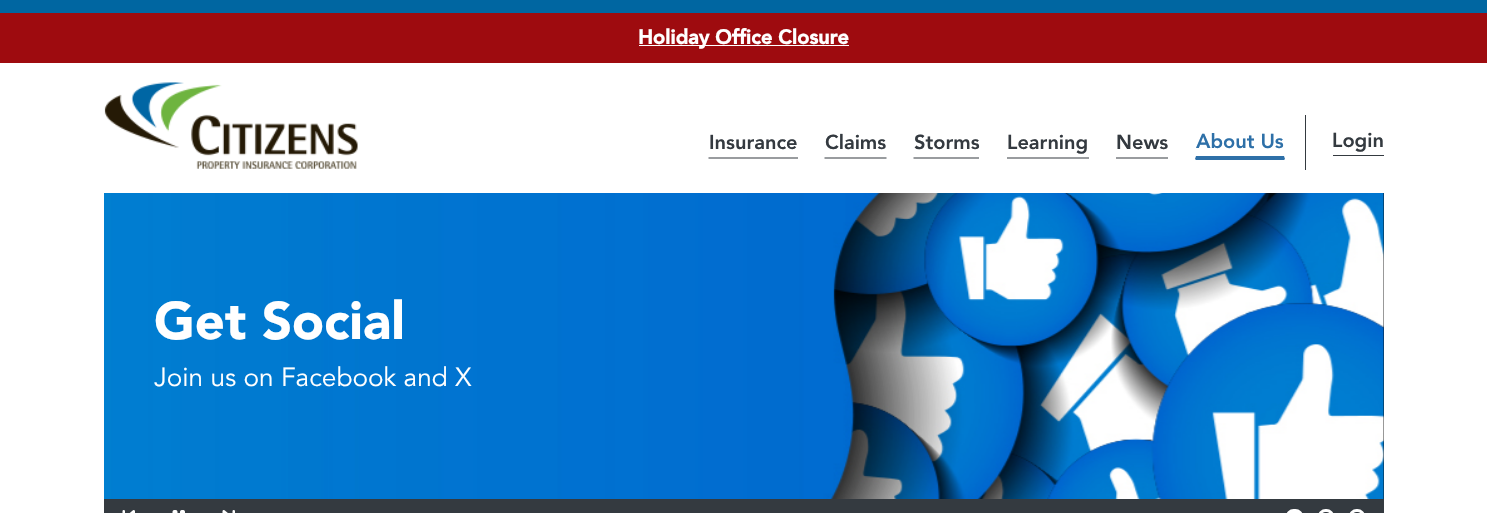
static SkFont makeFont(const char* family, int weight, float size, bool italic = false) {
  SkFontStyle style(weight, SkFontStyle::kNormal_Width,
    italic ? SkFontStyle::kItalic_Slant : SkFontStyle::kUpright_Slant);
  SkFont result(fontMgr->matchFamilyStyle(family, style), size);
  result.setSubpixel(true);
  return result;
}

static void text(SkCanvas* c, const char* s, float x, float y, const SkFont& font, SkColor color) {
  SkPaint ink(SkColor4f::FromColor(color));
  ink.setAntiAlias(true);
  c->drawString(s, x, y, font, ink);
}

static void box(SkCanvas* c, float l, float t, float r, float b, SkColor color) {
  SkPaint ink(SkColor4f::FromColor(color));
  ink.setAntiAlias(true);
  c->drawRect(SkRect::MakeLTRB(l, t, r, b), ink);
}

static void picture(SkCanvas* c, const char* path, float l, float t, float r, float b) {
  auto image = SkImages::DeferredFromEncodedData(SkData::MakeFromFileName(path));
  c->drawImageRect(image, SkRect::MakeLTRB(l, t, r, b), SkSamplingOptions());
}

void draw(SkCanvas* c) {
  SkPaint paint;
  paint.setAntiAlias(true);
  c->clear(0xffffffff);
  box(c, 0, 0, 1487, 13, 0xff0066a1);
  box(c, 0, 13, 1487, 63, 0xff9e0b0f);
  box(c, 639, 45, 849, 46, 0xffffffff);
  SkFont face1 = makeFont("Avenir", 700, 20);
  text(c, "Holiday Office Closure", 638, 44, face1, 0xffffffff);
  picture(c, "img_01.png", 104, 82, 358, 169);
  box(c, 1305, 115, 1306, 170, 0xff343a40);
  paint.setStyle(SkPaint::kStroke_Style);
  paint.setStrokeWidth(1.2f);
  paint.setColor(0xff343a40);
  c->drawPath(SkPathBuilder().moveTo(798, 158).lineTo(708.5f, 158).detach(), paint);
  SkFont face2 = makeFont("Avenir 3", 400, 20);
  text(c, "Insurance", 709, 149, face2, 0xff343a40);
  c->drawPath(SkPathBuilder().moveTo(886.5f, 158).lineTo(824.5f, 158).detach(), paint);
  text(c, "Claims", 825, 149, face2, 0xff343a40);
  c->drawPath(SkPathBuilder().moveTo(979, 158).lineTo(913.5f, 158).detach(), paint);
  text(c, "Storms", 914, 149, face2, 0xff343a40);
  c->drawPath(SkPathBuilder().moveTo(1089, 158).lineTo(1007, 158).detach(), paint);
  text(c, "Learning", 1007, 149, face2, 0xff343a40);
  c->drawPath(SkPathBuilder().moveTo(1168, 158).lineTo(1116, 158).detach(), paint);
  text(c, "News", 1116, 149, face2, 0xff343a40);
  paint.setStyle(SkPaint::kFill_Style);
  paint.setColor(0xff2e70a8);
  c->drawPath(SkPathBuilder().moveTo(1196, 160).lineTo(1284, 160).lineTo(1285, 159).lineTo(1284, 156).lineTo(1196, 156).lineTo(1195, 159).close().detach(), paint);
  text(c, "About Us", 1196, 148, face2, 0xff2e70a8);
  box(c, 1333, 155, 1384, 156, 0xff343a40);
  text(c, "Login", 1332, 147, face2, 0xff343a40);
  box(c, 1383, 193, 1384, 499, 0xff000000);
  picture(c, "img_02.png", 104, 193, 1384, 499);
  SkFont face3 = makeFont("Avenir", 400, 52.5f);
  text(c, "Get Social", 154, 339, face3, 0xffffffff);
  SkFont face4 = makeFont("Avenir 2", 400, 26.25f);
  text(c, "Join us on Facebook and X", 154, 386, face4, 0xffffffff);
  box(c, 104, 499, 1384, 513, 0xff343a40);
  picture(c, "img_03.png", 122, 510, 135, 513);
  picture(c, "img_04.png", 172, 510, 185, 513);
  picture(c, "img_05.png", 222, 510, 235, 513);
  paint.setColor(0xffffffff);
  c->drawRoundRect(SkRect::MakeLTRB(1287.5f, 510.5f, 1301.5f, 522.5f), 6.5f, 6.5f, paint);
  paint.setStyle(SkPaint::kStroke_Style);
  paint.setStrokeWidth(3);
  c->drawRoundRect(SkRect::MakeLTRB(1287.5f, 510.5f, 1301.5f, 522.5f), 6.5f, 6.5f, paint);
  c->drawRoundRect(SkRect::MakeLTRB(1319.5f, 510.5f, 1332.5f, 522.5f), 6.5f, 6.5f, paint);
  c->drawRoundRect(SkRect::MakeLTRB(1350.5f, 510.5f, 1363.5f, 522.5f), 6.5f, 6.5f, paint);
}
